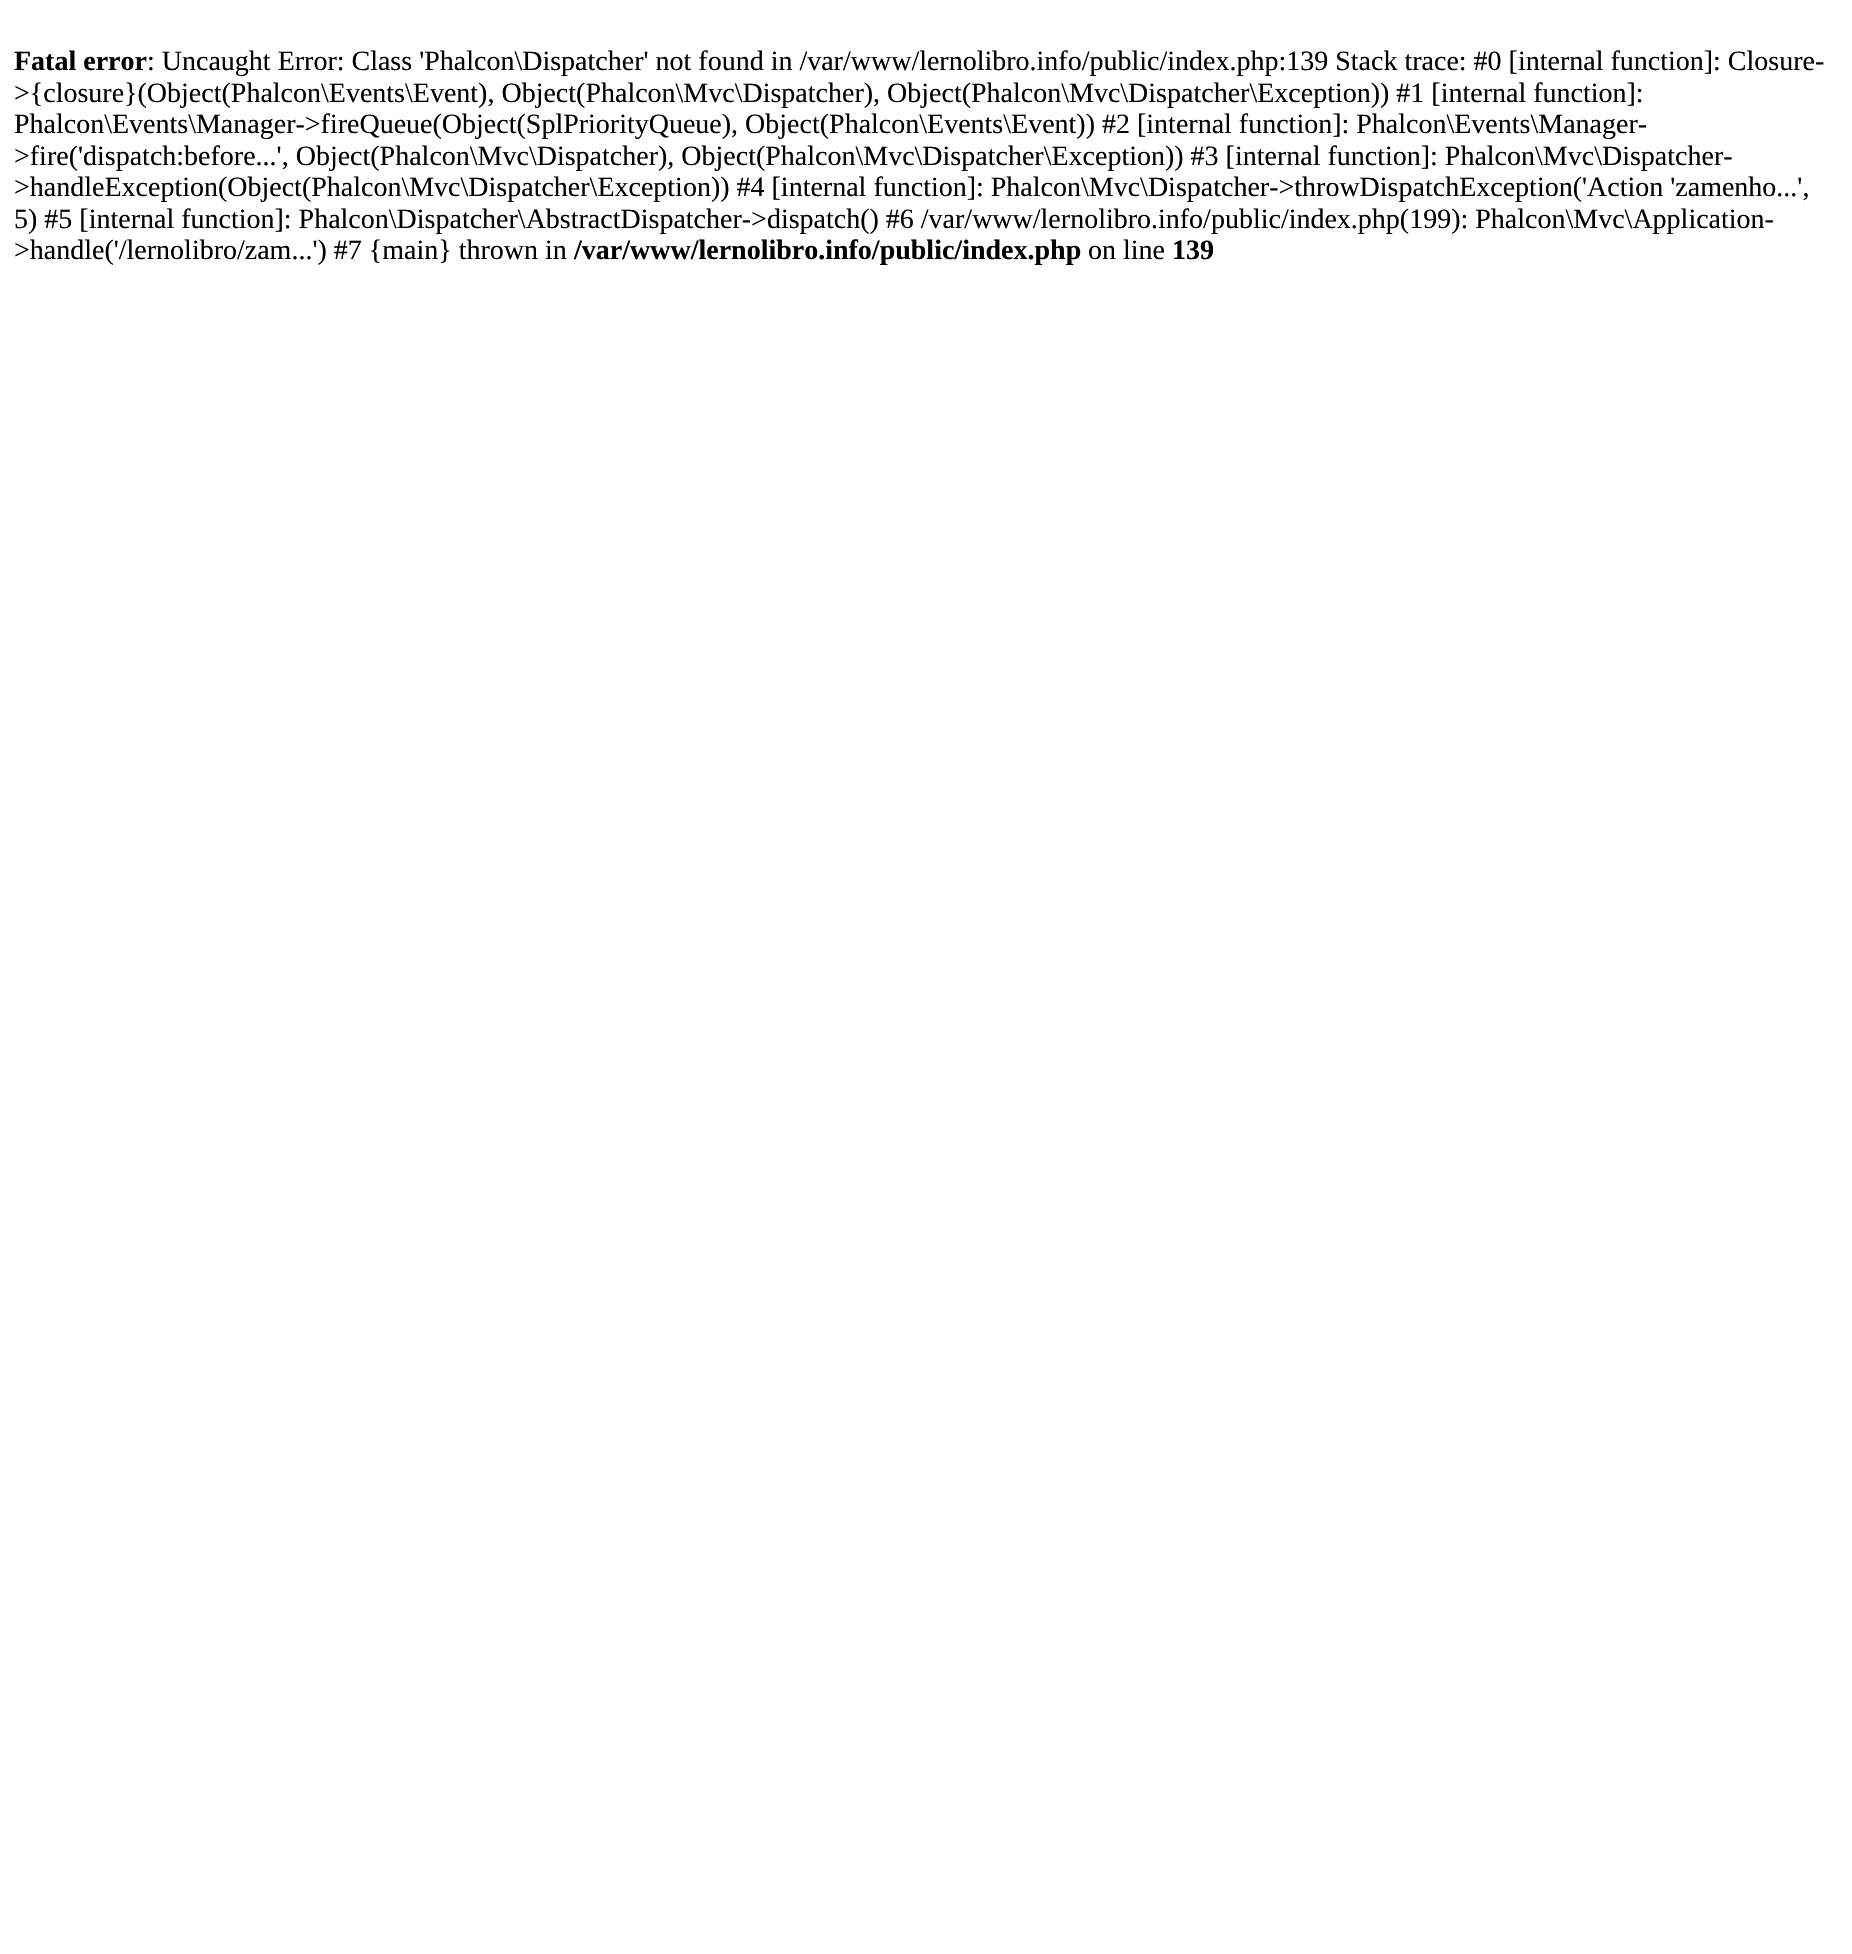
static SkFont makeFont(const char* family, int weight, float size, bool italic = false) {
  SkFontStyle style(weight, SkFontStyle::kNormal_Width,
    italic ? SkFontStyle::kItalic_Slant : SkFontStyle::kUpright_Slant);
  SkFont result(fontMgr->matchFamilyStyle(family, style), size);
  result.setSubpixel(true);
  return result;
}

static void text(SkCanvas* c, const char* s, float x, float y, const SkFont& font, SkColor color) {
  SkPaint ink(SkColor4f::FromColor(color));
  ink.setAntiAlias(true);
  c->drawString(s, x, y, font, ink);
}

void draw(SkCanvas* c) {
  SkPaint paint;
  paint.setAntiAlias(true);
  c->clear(0xffffffff);
  SkFont face1 = makeFont("Liberation Serif", 700, 28);
  text(c, "Fatal error", 14, 70, face1, 0xff000000);
  SkFont face2 = makeFont("Liberation Serif", 400, 28);
  text(c, ": Uncaught Error: Class 'Phalcon\\Dispatcher' not found in /var/www/lernolibro.info/public/index.php:139 Stack trace: #0 [internal function]: Closure-", 147, 70, face2, 0xff000000);
  text(c, ">{closure}(Object(Phalcon\\Events\\Event), Object(Phalcon\\Mvc\\Dispatcher), Object(Phalcon\\Mvc\\Dispatcher\\Exception)) #1 [internal function]:", 14, 102, face2, 0xff000000);
  text(c, "Phalcon\\Events\\Manager->fireQueue(Object(SplPriorityQueue), Object(Phalcon\\Events\\Event)) #2 [internal function]: Phalcon\\Events\\Manager-", 14, 133, face2, 0xff000000);
  text(c, ">fire('dispatch:before...', Object(Phalcon\\Mvc\\Dispatcher), Object(Phalcon\\Mvc\\Dispatcher\\Exception)) #3 [internal function]: Phalcon\\Mvc\\Dispatcher-", 14, 165, face2, 0xff000000);
  text(c, ">handleException(Object(Phalcon\\Mvc\\Dispatcher\\Exception)) #4 [internal function]: Phalcon\\Mvc\\Dispatcher->throwDispatchException('Action 'zamenho...',", 14, 196, face2, 0xff000000);
  text(c, "5) #5 [internal function]: Phalcon\\Dispatcher\\AbstractDispatcher->dispatch() #6 /var/www/lernolibro.info/public/index.php(199): Phalcon\\Mvc\\Application-", 14, 228, face2, 0xff000000);
  text(c, ">handle('/lernolibro/zam...') #7 {main} thrown in", 14, 259, face2, 0xff000000);
  text(c, "/var/www/lernolibro.info/public/index.php", 574, 259, face1, 0xff000000);
  text(c, "on line", 1088, 259, face2, 0xff000000);
  text(c, "139", 1172, 259, face1, 0xff000000);
}
